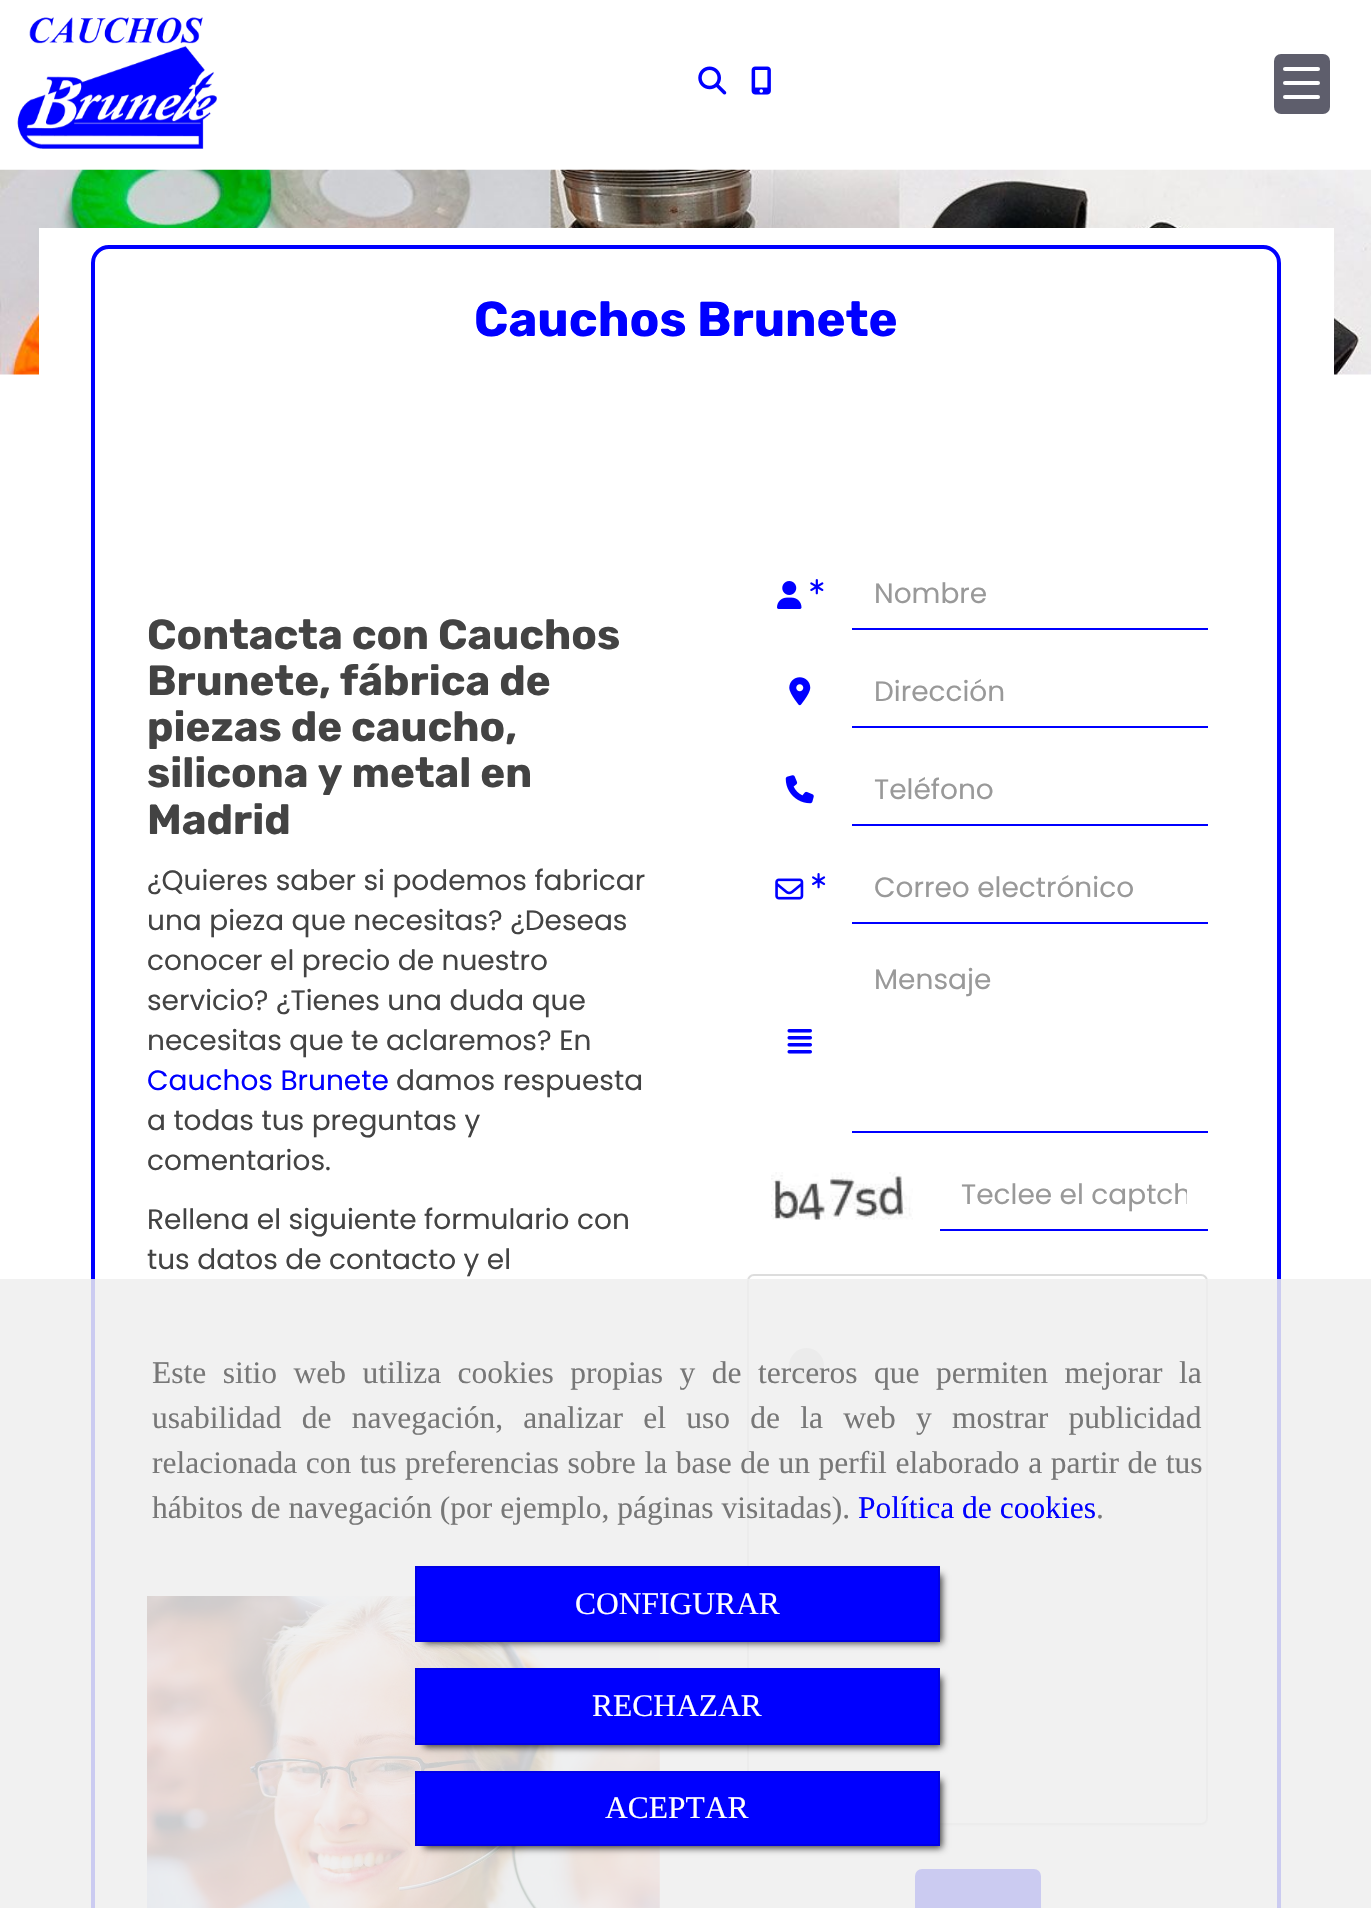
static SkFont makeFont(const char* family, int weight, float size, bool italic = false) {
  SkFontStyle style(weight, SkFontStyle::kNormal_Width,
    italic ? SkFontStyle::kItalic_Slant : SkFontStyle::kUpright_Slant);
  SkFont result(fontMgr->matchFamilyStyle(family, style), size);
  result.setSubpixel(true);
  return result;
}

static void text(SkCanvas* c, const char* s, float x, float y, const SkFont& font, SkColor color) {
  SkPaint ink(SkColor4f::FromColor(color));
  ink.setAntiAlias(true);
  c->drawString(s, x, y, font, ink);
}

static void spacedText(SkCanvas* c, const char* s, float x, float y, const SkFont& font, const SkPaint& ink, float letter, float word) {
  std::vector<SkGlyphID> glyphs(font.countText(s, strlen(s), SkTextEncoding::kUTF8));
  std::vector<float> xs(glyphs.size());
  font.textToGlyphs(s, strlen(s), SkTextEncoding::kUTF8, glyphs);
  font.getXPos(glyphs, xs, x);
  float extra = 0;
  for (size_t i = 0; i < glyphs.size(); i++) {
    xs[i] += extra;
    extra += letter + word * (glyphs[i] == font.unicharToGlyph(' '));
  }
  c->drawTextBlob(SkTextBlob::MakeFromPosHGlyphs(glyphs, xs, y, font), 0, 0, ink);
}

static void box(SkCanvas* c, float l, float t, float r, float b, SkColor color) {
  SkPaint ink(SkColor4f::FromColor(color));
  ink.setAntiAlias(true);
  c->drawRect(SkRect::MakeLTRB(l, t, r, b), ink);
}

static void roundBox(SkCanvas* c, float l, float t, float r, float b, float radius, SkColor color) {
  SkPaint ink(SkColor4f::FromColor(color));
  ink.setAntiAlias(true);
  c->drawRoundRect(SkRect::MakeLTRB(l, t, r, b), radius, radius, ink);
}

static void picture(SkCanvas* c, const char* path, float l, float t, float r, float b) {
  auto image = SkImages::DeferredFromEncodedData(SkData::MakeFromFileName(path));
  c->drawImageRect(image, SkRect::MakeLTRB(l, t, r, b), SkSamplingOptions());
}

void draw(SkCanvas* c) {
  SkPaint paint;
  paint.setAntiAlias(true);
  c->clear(0xffffffff);
  picture(c, "img_01.png", 17, 17, 217, 149);
  picture(c, "img_02.png", 698, 66, 727, 95);
  picture(c, "img_03.png", 751, 66, 771, 95);
  roundBox(c, 1274, 54, 1330, 114, 7, 0xff5e5e6c);
  roundBox(c, 1283, 81, 1320, 85, 2, 0xffffffff);
  roundBox(c, 1283, 67, 1320, 71, 2, 0xffffffff);
  roundBox(c, 1283, 95, 1320, 99, 2, 0xffffffff);
  picture(c, "img_04.png", 0, 169, 1371, 375);
  box(c, 39, 228, 1334, 375, 0xffffffff);
  paint.setStyle(SkPaint::kStroke_Style);
  paint.setStrokeWidth(4);
  paint.setColor(0xff0000ff);
  c->drawRoundRect(SkRect::MakeLTRB(93, 247, 1279, 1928), 16, 16, paint);
  SkFont face1 = makeFont("Rubik", 700, 49);
  text(c, "Cauchos Brunete", 474, 336, face1, 0xff0000ff);
  SkFont face2 = makeFont("Rubik", 700, 42);
  text(c, "Contacta con Cauchos", 147, 649, face2, 0xff434343);
  text(c, "Brunete, fábrica de", 147, 695, face2, 0xff434343);
  text(c, "piezas de caucho,", 147, 741, face2, 0xff434343);
  text(c, "silicona y metal en", 147, 787, face2, 0xff434343);
  text(c, "Madrid", 147, 834, face2, 0xff434343);
  SkFont face3 = makeFont("Poppins", 400, 28);
  text(c, "¿Quieres saber si podemos fabricar", 147, 890, face3, 0xff434343);
  text(c, "una pieza que necesitas? ¿Deseas", 147, 930, face3, 0xff434343);
  text(c, "conocer el precio de nuestro", 147, 970, face3, 0xff434343);
  text(c, "servicio? ¿Tienes una duda que", 147, 1010, face3, 0xff434343);
  text(c, "necesitas que te aclaremos? En", 147, 1050, face3, 0xff434343);
  text(c, "Cauchos Brunete", 147, 1090, face3, 0xff0000ff);
  text(c, "damos respuesta", 396, 1090, face3, 0xff434343);
  text(c, "a todas tus preguntas y", 147, 1130, face3, 0xff434343);
  text(c, "comentarios.", 147, 1170, face3, 0xff434343);
  text(c, "Rellena el siguiente formulario con", 147, 1229, face3, 0xff434343);
  text(c, "tus datos de contacto y el", 147, 1269, face3, 0xff434343);
  picture(c, "img_05.png", 147, 1596, 660, 1908);
  picture(c, "img_06.png", 777, 581, 802, 609);
  picture(c, "img_07.png", 810, 579, 824, 595);
  box(c, 852, 628, 1208, 630, 0xff0000ff);
  text(c, "Nombre", 874, 603, face3, 0xff999999);
  picture(c, "img_08.png", 789, 677, 811, 706);
  box(c, 852, 726, 1208, 728, 0xff0000ff);
  text(c, "Dirección", 874, 701, face3, 0xff999999);
  picture(c, "img_09.png", 785, 775, 814, 804);
  box(c, 852, 824, 1208, 826, 0xff0000ff);
  text(c, "Teléfono", 874, 799, face3, 0xff999999);
  picture(c, "img_10.png", 775, 878, 804, 900);
  picture(c, "img_11.png", 812, 873, 826, 889);
  box(c, 852, 922, 1208, 924, 0xff0000ff);
  text(c, "Correo electrónico", 874, 897, face3, 0xff999999);
  box(c, 852, 1131, 1208, 1133, 0xff0000ff);
  text(c, "Mensaje", 874, 989, face3, 0xff999999);
  picture(c, "img_12.png", 787, 1029, 812, 1054);
  picture(c, "img_13.png", 771, 1172, 913, 1220);
  box(c, 940, 1229, 1208, 1231, 0xff0000ff);
  c->save();
  c->clipRect(SkRect::MakeLTRB(961, 1173, 1187, 1216));
  text(c, "Teclee el captch", 961, 1204, face3, 0xff999999);
  c->restore();
  c->save();
  c->clipPath(SkPathBuilder(SkPathFillType::kEvenOdd).moveTo(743, 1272).lineTo(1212, 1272).lineTo(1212, 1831).lineTo(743, 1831).close().moveTo(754, 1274).lineTo(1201, 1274).cubicTo(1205, 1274, 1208, 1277, 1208, 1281).lineTo(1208, 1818).cubicTo(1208, 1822, 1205, 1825, 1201, 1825).lineTo(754, 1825).cubicTo(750, 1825, 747, 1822, 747, 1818).lineTo(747, 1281).cubicTo(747, 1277, 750, 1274, 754, 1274).close().detach(), true);
  paint.setStyle(SkPaint::kFill_Style);
  paint.setColor(0x0d000000);
  paint.setMaskFilter(SkMaskFilter::MakeBlur(kNormal_SkBlurStyle, 1));
  c->drawRoundRect(SkRect::MakeLTRB(747, 1276, 1208, 1827), 7, 7, paint);
  paint.setMaskFilter(nullptr);
  c->restore();
  paint.setStyle(SkPaint::kStroke_Style);
  paint.setStrokeWidth(2);
  paint.setColor(0xffdddddd);
  c->drawRoundRect(SkRect::MakeLTRB(748, 1275, 1207, 1824), 6, 6, paint);
  paint.setStyle(SkPaint::kFill_Style);
  paint.setColor(0xffd6d6d6);
  c->drawCircle(806.5f, 1365.5f, 17.5f, paint);
  roundBox(c, 915, 1869, 1041, 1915, 7, 0xff0000ff);
  box(c, 0, 1279, 1371, 1908, 0xd9eeeeee);
  SkFont face4 = makeFont("Liberation Serif", 400, 31.5f);
  paint.setColor(0xff777777);
  spacedText(c, "Este sitio web utiliza cookies propias y de terceros que permiten mejorar la", 152, 1383, face4, paint, 0, 8.6f);
  spacedText(c, "usabilidad de navegación, analizar el uso de la web y mostrar publicidad", 152, 1428, face4, paint, 0, 12.4f);
  spacedText(c, "relacionada con tus preferencias sobre la base de un perfil elaborado a partir de tus", 152, 1473, face4, paint, 0, 0.7f);
  text(c, "hábitos de navegación (por ejemplo, páginas visitadas).", 152, 1518, face4, 0xff777777);
  text(c, "Política de cookies", 858, 1518, face4, 0xff0000ff);
  text(c, ".", 1096, 1518, face4, 0xff777777);
  paint.setColor(0xbf000000);
  paint.setMaskFilter(SkMaskFilter::MakeBlur(kNormal_SkBlurStyle, 3.5f));
  c->drawRect(SkRect::MakeLTRB(424, 1575, 942, 1643), paint);
  paint.setMaskFilter(nullptr);
  paint.setColor(0xff0000ff);
  c->drawRect(SkRect::MakeLTRB(416, 1567, 939, 1641), paint);
  paint.setStyle(SkPaint::kStroke_Style);
  paint.setColor(0xff0000e6);
  c->drawRect(SkRect::MakeLTRB(416, 1567, 939, 1641), paint);
  text(c, "CONFIGURAR", 575, 1614, face4, 0xffffffff);
  paint.setStyle(SkPaint::kFill_Style);
  paint.setColor(0xbf000000);
  paint.setMaskFilter(SkMaskFilter::MakeBlur(kNormal_SkBlurStyle, 3.5f));
  c->drawRect(SkRect::MakeLTRB(424, 1677, 942, 1747), paint);
  paint.setMaskFilter(nullptr);
  paint.setColor(0xff0000ff);
  c->drawRect(SkRect::MakeLTRB(416, 1669, 939, 1744), paint);
  paint.setStyle(SkPaint::kStroke_Style);
  paint.setColor(0xff0000e6);
  c->drawRect(SkRect::MakeLTRB(416, 1669, 939, 1744), paint);
  text(c, "RECHAZAR", 592, 1716, face4, 0xffffffff);
  paint.setStyle(SkPaint::kFill_Style);
  paint.setColor(0xbf000000);
  paint.setMaskFilter(SkMaskFilter::MakeBlur(kNormal_SkBlurStyle, 3.5f));
  c->drawRect(SkRect::MakeLTRB(424, 1780, 942, 1848), paint);
  paint.setMaskFilter(nullptr);
  paint.setColor(0xff0000ff);
  c->drawRect(SkRect::MakeLTRB(416, 1772, 939, 1845), paint);
  paint.setStyle(SkPaint::kStroke_Style);
  paint.setColor(0xff0000e6);
  c->drawRect(SkRect::MakeLTRB(416, 1772, 939, 1845), paint);
  text(c, "ACEPTAR", 605, 1818, face4, 0xffffffff);
}
